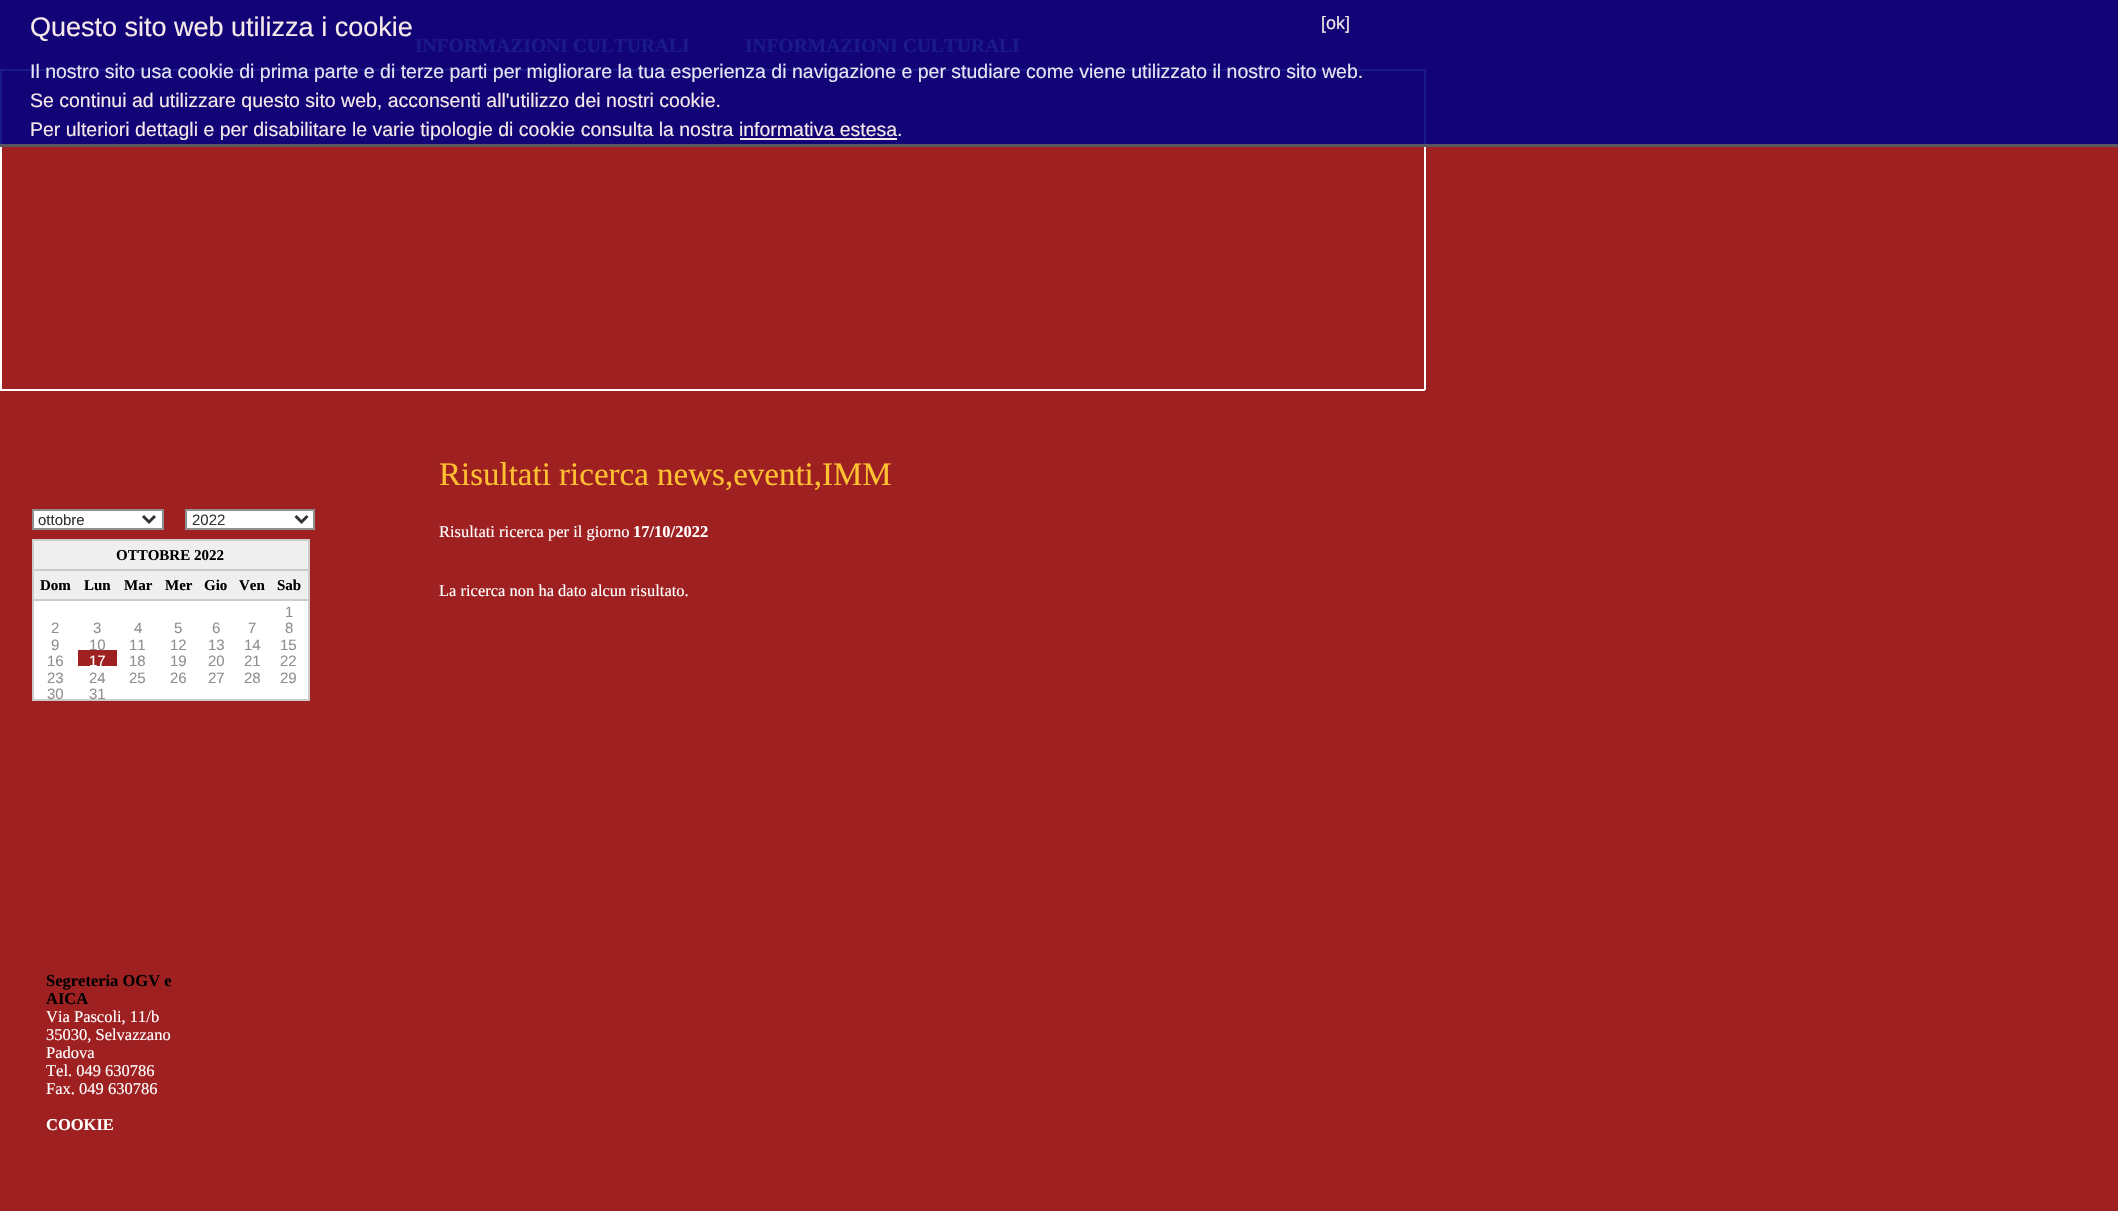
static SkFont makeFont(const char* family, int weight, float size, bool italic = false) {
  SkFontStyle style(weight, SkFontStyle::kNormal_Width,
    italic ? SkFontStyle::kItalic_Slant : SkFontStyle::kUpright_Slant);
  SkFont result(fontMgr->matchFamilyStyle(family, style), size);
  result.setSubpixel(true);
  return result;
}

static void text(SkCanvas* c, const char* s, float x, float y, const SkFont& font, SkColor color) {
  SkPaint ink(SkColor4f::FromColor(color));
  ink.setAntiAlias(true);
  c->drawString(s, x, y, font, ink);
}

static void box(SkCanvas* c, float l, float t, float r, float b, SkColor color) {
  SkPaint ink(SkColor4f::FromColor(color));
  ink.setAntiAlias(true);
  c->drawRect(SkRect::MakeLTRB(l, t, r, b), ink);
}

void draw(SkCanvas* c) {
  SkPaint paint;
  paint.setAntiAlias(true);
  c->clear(0xff9e2021);
  box(c, 0, 0, 2118, 144, 0xff120477);
  box(c, 0, 144, 2118, 147, 0xff585762);
  SkFont face1 = makeFont("Liberation Sans", 400, 27);
  text(c, "Questo sito web utilizza i cookie", 30, 36, face1, 0xfff5e9e9);
  SkFont face2 = makeFont("Liberation Sans", 400, 18);
  text(c, "[ok]", 1321, 29, face2, 0xfff5e9e9);
  box(c, 0, 69, 1425, 71, 0xff1b1a8d);
  SkFont face3 = makeFont("Liberation Sans", 400, 19.5f);
  text(c, "Il nostro sito usa cookie di prima parte e di terze parti per migliorare la tua esperienza di navigazione e per studiare come viene utilizzato il nostro sito web.", 30, 78, face3, 0xffe7e6f2);
  text(c, "Se continui ad utilizzare questo sito web, acconsenti all'utilizzo dei nostri cookie.", 30, 107, face3, 0xfff5e9e9);
  text(c, "Per ulteriori dettagli e per disabilitare le varie tipologie di cookie consulta la nostra informativa estesa.", 30, 136, face3, 0xfff5e9e9);
  box(c, 740, 138, 897, 140, 0xfff5e9e9);
  SkFont face4 = makeFont("Liberation Serif", 700, 19.5f);
  text(c, "INFORMAZIONI CULTURALI", 415, 52, face4, 0xff1b1a8d);
  text(c, "INFORMAZIONI CULTURALI", 745, 52, face4, 0xff1b1a8d);
  box(c, 1424, 147, 1426, 390, 0xffffffff);
  box(c, 1424, 69, 1426, 147, 0xff1b1a8d);
  box(c, 1424, 144, 1426, 147, 0xff595965);
  box(c, 0, 389, 1425, 391, 0xffffffff);
  box(c, 0, 147, 2, 390, 0xffffffff);
  box(c, 0, 69, 2, 147, 0xff1b1a8d);
  box(c, 0, 144, 2, 147, 0xff595965);
  paint.setColor(0xffffffff);
  c->drawRect(SkRect::MakeLTRB(33, 510, 163, 529), paint);
  paint.setStyle(SkPaint::kStroke_Style);
  paint.setStrokeWidth(2);
  paint.setColor(0xff8f8f8f);
  c->drawRect(SkRect::MakeLTRB(33, 510, 163, 529), paint);
  paint.setStrokeWidth(3);
  paint.setColor(0xff333333);
  c->drawPath(SkPathBuilder().moveTo(143, 516).lineTo(149, 522).lineTo(155, 516).detach(), paint);
  SkFont face5 = makeFont("Liberation Sans", 400, 15);
  text(c, "ottobre", 38, 525, face5, 0xff333333);
  paint.setStyle(SkPaint::kFill_Style);
  paint.setColor(0xffffffff);
  c->drawRect(SkRect::MakeLTRB(186, 510, 314, 529), paint);
  paint.setStyle(SkPaint::kStroke_Style);
  paint.setStrokeWidth(2);
  paint.setColor(0xff8f8f8f);
  c->drawRect(SkRect::MakeLTRB(186, 510, 314, 529), paint);
  paint.setStrokeWidth(3);
  paint.setColor(0xff333333);
  c->drawPath(SkPathBuilder().moveTo(295.5f, 516).lineTo(301.5f, 522).lineTo(307.5f, 516).detach(), paint);
  text(c, "2022", 192, 525, face5, 0xff333333);
  box(c, 32, 539, 309, 541, 0xffcbcbcb);
  box(c, 308, 539, 310, 701, 0xffcbcbcb);
  box(c, 32, 699, 309, 701, 0xffcbcbcb);
  box(c, 32, 539, 34, 701, 0xffcbcbcb);
  box(c, 34, 541, 308, 569, 0xffefefef);
  box(c, 32, 569, 309, 571, 0xffcbcbcb);
  SkFont face6 = makeFont("Liberation Serif", 700, 15);
  text(c, "OTTOBRE 2022", 116, 560, face6, 0xff000000);
  box(c, 34, 571, 308, 599, 0xffefefef);
  text(c, "Dom", 40, 590, face6, 0xff000000);
  text(c, "Lun", 84, 590, face6, 0xff000000);
  text(c, "Mar", 124, 590, face6, 0xff000000);
  text(c, "Mer", 165, 590, face6, 0xff000000);
  text(c, "Gio", 204, 590, face6, 0xff000000);
  text(c, "Ven", 239, 590, face6, 0xff000000);
  box(c, 32, 599, 309, 601, 0xffcbcbcb);
  text(c, "Sab", 277, 590, face6, 0xff000000);
  box(c, 34, 601, 308, 617, 0xffffffff);
  text(c, "1", 285, 617, face5, 0xff8f8f92);
  box(c, 34, 617, 308, 633, 0xffffffff);
  text(c, "2", 51, 633, face5, 0xff8f8f92);
  box(c, 34, 633, 308, 650, 0xffffffff);
  text(c, "3", 93, 633, face5, 0xff8f8f92);
  text(c, "4", 134, 633, face5, 0xff8f8f92);
  text(c, "5", 174, 633, face5, 0xff8f8f92);
  text(c, "6", 212, 633, face5, 0xff8f8f92);
  text(c, "7", 248, 633, face5, 0xff8f8f92);
  text(c, "8", 285, 633, face5, 0xff8f8f92);
  box(c, 34, 650, 78, 699, 0xffffffff);
  text(c, "9", 51, 650, face5, 0xff8f8f92);
  text(c, "10", 89, 650, face5, 0xff8f8f92);
  text(c, "11", 129, 650, face5, 0xff8f8f92);
  text(c, "12", 170, 650, face5, 0xff8f8f92);
  box(c, 117, 650, 308, 666, 0xffffffff);
  text(c, "13", 208, 650, face5, 0xff8f8f92);
  text(c, "14", 244, 650, face5, 0xff8f8f92);
  text(c, "15", 280, 650, face5, 0xff8f8f92);
  text(c, "16", 47, 666, face5, 0xff8f8f92);
  text(c, "17", 89, 666, face5, 0xffffffff);
  box(c, 78, 666, 308, 683, 0xffffffff);
  text(c, "18", 129, 666, face5, 0xff8f8f92);
  text(c, "19", 170, 666, face5, 0xff8f8f92);
  text(c, "20", 208, 666, face5, 0xff8f8f92);
  text(c, "21", 244, 666, face5, 0xff8f8f92);
  text(c, "22", 280, 666, face5, 0xff8f8f92);
  text(c, "23", 47, 683, face5, 0xff8f8f92);
  text(c, "24", 89, 683, face5, 0xff8f8f92);
  box(c, 78, 683, 308, 699, 0xffffffff);
  text(c, "25", 129, 683, face5, 0xff8f8f92);
  text(c, "26", 170, 683, face5, 0xff8f8f92);
  text(c, "27", 208, 683, face5, 0xff8f8f92);
  text(c, "28", 244, 683, face5, 0xff8f8f92);
  text(c, "29", 280, 683, face5, 0xff8f8f92);
  text(c, "30", 47, 699, face5, 0xff8f8f92);
  text(c, "31", 89, 699, face5, 0xff8f8f92);
  SkFont face7 = makeFont("Liberation Serif", 700, 16.5f);
  text(c, "Segreteria OGV e", 46, 986, face7, 0xff000000);
  text(c, "AICA", 46, 1004, face7, 0xff000000);
  SkFont face8 = makeFont("Liberation Serif", 400, 16.5f);
  text(c, "Via Pascoli, 11/b", 46, 1022, face8, 0xffffffff);
  text(c, "35030, Selvazzano", 46, 1040, face8, 0xffffffff);
  text(c, "Padova", 46, 1058, face8, 0xffffffff);
  text(c, "Tel. 049 630786", 46, 1076, face8, 0xffffffff);
  text(c, "Fax. 049 630786", 46, 1094, face8, 0xffffffff);
  text(c, "COOKIE", 46, 1130, face7, 0xffffffff);
  SkFont face9 = makeFont("Liberation Serif", 400, 33);
  text(c, "Risultati ricerca news,eventi,IMM", 439, 485, face9, 0xffffc032);
  text(c, "Risultati ricerca per il giorno", 439, 537, face8, 0xffffffff);
  text(c, "17/10/2022", 633, 537, face7, 0xffffffff);
  text(c, "La ricerca non ha dato alcun risultato.", 439, 596, face8, 0xffffffff);
}
